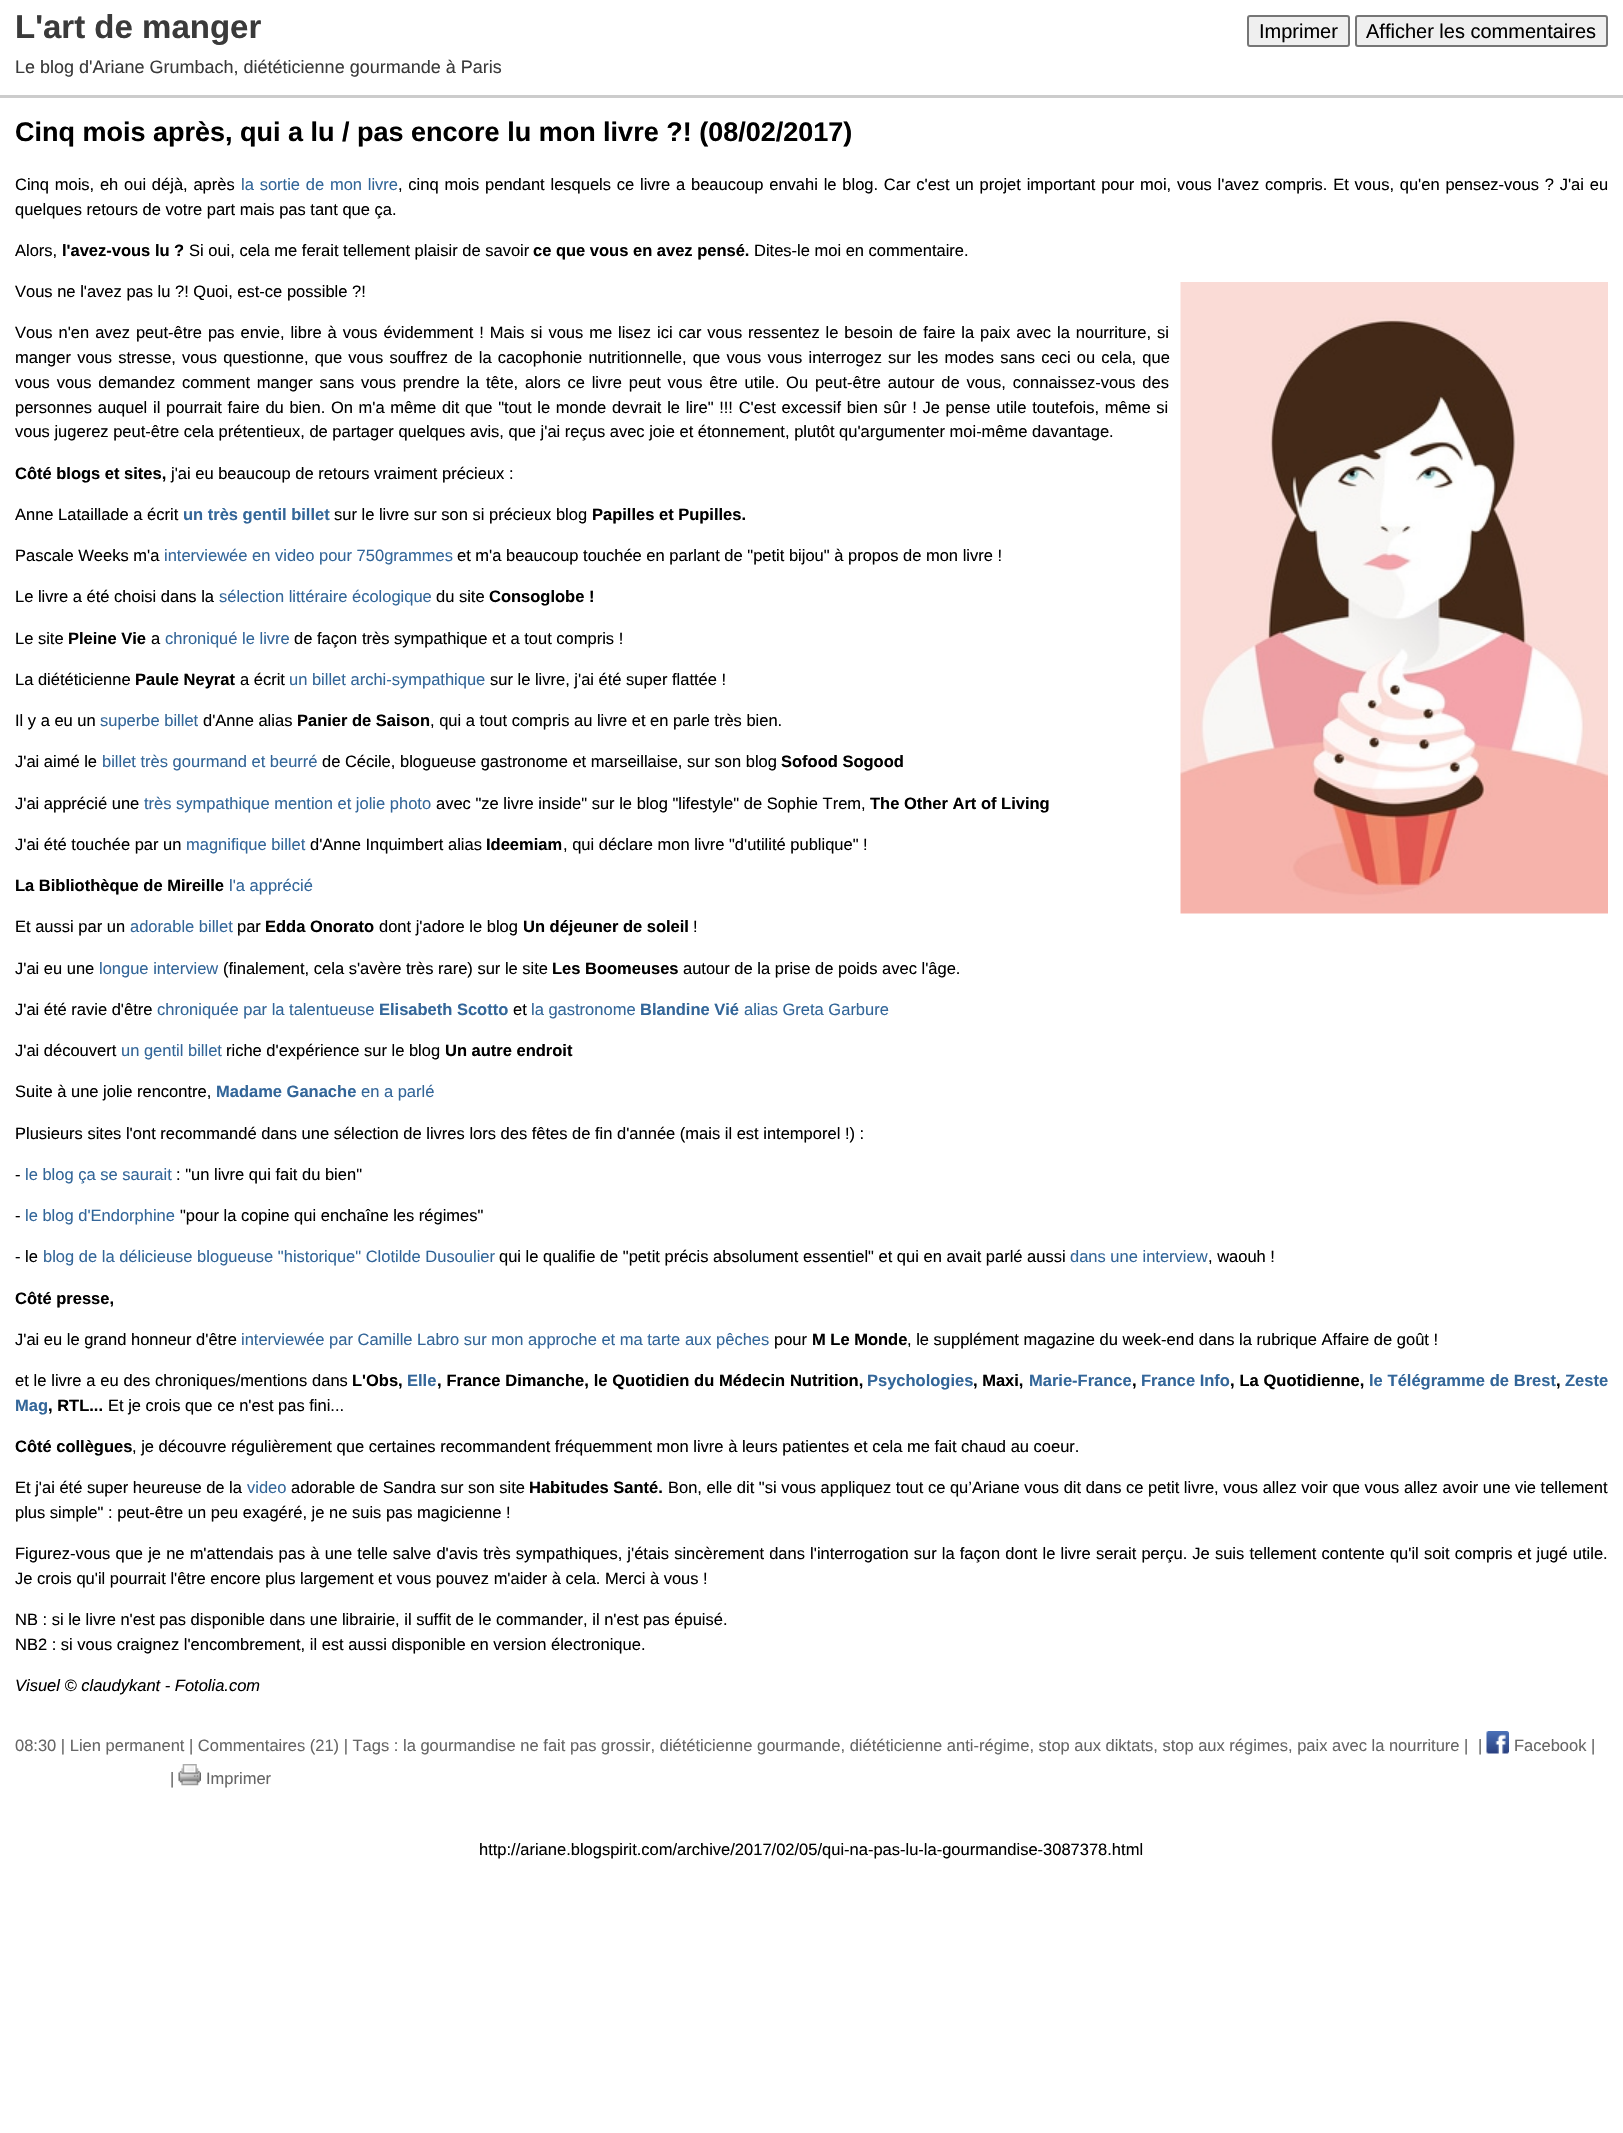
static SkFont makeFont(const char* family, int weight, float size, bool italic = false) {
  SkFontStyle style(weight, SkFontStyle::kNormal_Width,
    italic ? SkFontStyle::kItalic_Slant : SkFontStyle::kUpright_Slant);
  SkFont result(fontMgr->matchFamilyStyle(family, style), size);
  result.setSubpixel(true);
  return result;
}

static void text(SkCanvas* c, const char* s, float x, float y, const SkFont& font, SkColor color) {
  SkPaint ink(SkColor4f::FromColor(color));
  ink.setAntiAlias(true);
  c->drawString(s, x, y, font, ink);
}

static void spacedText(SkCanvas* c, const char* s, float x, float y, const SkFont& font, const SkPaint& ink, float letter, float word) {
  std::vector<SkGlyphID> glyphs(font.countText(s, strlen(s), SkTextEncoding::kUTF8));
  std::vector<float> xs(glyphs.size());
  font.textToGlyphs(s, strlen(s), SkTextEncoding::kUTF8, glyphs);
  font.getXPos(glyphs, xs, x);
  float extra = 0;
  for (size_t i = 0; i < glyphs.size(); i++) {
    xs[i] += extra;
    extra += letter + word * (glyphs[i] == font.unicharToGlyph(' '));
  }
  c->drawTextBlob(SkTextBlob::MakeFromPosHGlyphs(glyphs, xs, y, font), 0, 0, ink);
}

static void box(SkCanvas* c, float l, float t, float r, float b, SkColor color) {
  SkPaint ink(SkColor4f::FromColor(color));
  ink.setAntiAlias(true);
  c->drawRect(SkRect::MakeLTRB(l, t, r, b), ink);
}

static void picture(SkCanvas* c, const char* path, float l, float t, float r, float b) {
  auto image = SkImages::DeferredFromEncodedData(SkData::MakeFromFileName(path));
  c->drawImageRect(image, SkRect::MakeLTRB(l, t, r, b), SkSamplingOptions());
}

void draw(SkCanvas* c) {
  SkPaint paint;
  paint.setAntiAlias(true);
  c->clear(0xffffffff);
  box(c, 0, 95, 1623, 98, 0xffcccccc);
  SkFont face1 = makeFont("Liberation Sans", 700, 33);
  text(c, "L'art de manger", 15, 38, face1, 0xff3a3a3a);
  paint.setColor(0xffefefef);
  c->drawRoundRect(SkRect::MakeLTRB(1248, 16, 1349, 46), 2, 2, paint);
  paint.setStyle(SkPaint::kStroke_Style);
  paint.setStrokeWidth(2);
  paint.setColor(0xff767676);
  c->drawRoundRect(SkRect::MakeLTRB(1248, 16, 1349, 46), 2, 2, paint);
  SkFont face2 = makeFont("Liberation Sans", 400, 20);
  text(c, "Imprimer", 1259, 38, face2, 0xff000000);
  paint.setStyle(SkPaint::kFill_Style);
  paint.setColor(0xffefefef);
  c->drawRoundRect(SkRect::MakeLTRB(1356, 16, 1607, 46), 2, 2, paint);
  paint.setStyle(SkPaint::kStroke_Style);
  paint.setColor(0xff767676);
  c->drawRoundRect(SkRect::MakeLTRB(1356, 16, 1607, 46), 2, 2, paint);
  text(c, "Afficher les commentaires", 1366, 38, face2, 0xff000000);
  SkFont face3 = makeFont("Liberation Sans", 400, 18);
  text(c, "Le blog d'Ariane Grumbach, diététicienne gourmande à Paris", 15, 73, face3, 0xff3a3a3a);
  SkFont face4 = makeFont("Liberation Sans", 700, 27);
  text(c, "Cinq mois après, qui a lu / pas encore lu mon livre ?! (08/02/2017)", 15, 141, face4, 0xff000000);
  SkFont face5 = makeFont("Liberation Sans", 400, 16.5f);
  paint.setStyle(SkPaint::kFill_Style);
  paint.setColor(0xff000000);
  spacedText(c, "Cinq mois, eh oui déjà, après", 15, 190, face5, paint, 0, 1.2f);
  paint.setColor(0xff336699);
  spacedText(c, "la sortie de mon livre", 241, 190, face5, paint, 0, 1.2f);
  paint.setColor(0xff000000);
  spacedText(c, ", cinq mois pendant lesquels ce livre a beaucoup envahi le blog. Car c'est un projet important pour moi, vous l'avez compris. Et vous, qu'en pensez-vous ? J'ai eu", 398, 190, face5, paint, 0, 1.2f);
  text(c, "quelques retours de votre part mais pas tant que ça.", 15, 215, face5, 0xff000000);
  text(c, "Alors,", 15, 256, face5, 0xff000000);
  SkFont face6 = makeFont("Liberation Sans", 700, 16.5f);
  text(c, "l'avez-vous lu ?", 62, 256, face6, 0xff000000);
  text(c, "Si oui, cela me ferait tellement plaisir de savoir", 189, 256, face5, 0xff000000);
  text(c, "ce que vous en avez pensé.", 533, 256, face6, 0xff000000);
  text(c, "Dites-le moi en commentaire.", 754, 256, face5, 0xff000000);
  text(c, "Vous ne l'avez pas lu ?! Quoi, est-ce possible ?!", 15, 297, face5, 0xff000000);
  picture(c, "img_01.png", 1180, 282, 1608, 914);
  spacedText(c, "Vous n'en avez peut-être pas envie, libre à vous évidemment ! Mais si vous me lisez ici car vous ressentez le besoin de faire la paix avec la nourriture, si", 15, 338, face5, paint, 0, 1.35f);
  spacedText(c, "manger vous stresse, vous questionne, que vous souffrez de la cacophonie nutritionnelle, que vous vous interrogez sur les modes sans ceci ou cela, que", 15, 363, face5, paint, 0, 1.6f);
  spacedText(c, "vous vous demandez comment manger sans vous prendre la tête, alors ce livre peut vous être utile. Ou peut-être autour de vous, connaissez-vous des", 15, 388, face5, paint, 0, 2.2f);
  spacedText(c, "personnes auquel il pourrait faire du bien. On m'a même dit que \"tout le monde devrait le lire\" !!! C'est excessif bien sûr ! Je pense utile toutefois, même si", 15, 413, face5, paint, 0, 1.1f);
  text(c, "vous jugerez peut-être cela prétentieux, de partager quelques avis, que j'ai reçus avec joie et étonnement, plutôt qu'argumenter moi-même davantage.", 15, 437, face5, 0xff000000);
  text(c, "Côté blogs et sites,", 15, 479, face6, 0xff000000);
  text(c, "j'ai eu beaucoup de retours vraiment précieux :", 171, 479, face5, 0xff000000);
  text(c, "Anne Lataillade a écrit", 15, 520, face5, 0xff000000);
  text(c, "un très gentil billet", 183, 520, face6, 0xff336699);
  text(c, "sur le livre sur son si précieux blog", 334, 520, face5, 0xff000000);
  text(c, "Papilles et Pupilles.", 592, 520, face6, 0xff000000);
  text(c, "Pascale Weeks m'a", 15, 561, face5, 0xff000000);
  text(c, "interviewée en video pour 750grammes", 164, 561, face5, 0xff336699);
  text(c, "et m'a beaucoup touchée en parlant de \"petit bijou\" à propos de mon livre !", 457, 561, face5, 0xff000000);
  text(c, "Le livre a été choisi dans la", 15, 602, face5, 0xff000000);
  text(c, "sélection littéraire écologique", 219, 602, face5, 0xff336699);
  text(c, "du site", 436, 602, face5, 0xff000000);
  text(c, "Consoglobe !", 489, 602, face6, 0xff000000);
  text(c, "Le site", 15, 644, face5, 0xff000000);
  text(c, "Pleine Vie", 68, 644, face6, 0xff000000);
  text(c, "a", 151, 644, face5, 0xff000000);
  text(c, "chroniqué le livre", 165, 644, face5, 0xff336699);
  text(c, "de façon très sympathique et a tout compris !", 294, 644, face5, 0xff000000);
  text(c, "La diététicienne", 15, 685, face5, 0xff000000);
  text(c, "Paule Neyrat", 135, 685, face6, 0xff000000);
  text(c, "a écrit", 240, 685, face5, 0xff000000);
  text(c, "un billet archi-sympathique", 289, 685, face5, 0xff336699);
  text(c, "sur le livre, j'ai été super flattée !", 490, 685, face5, 0xff000000);
  text(c, "Il y a eu un", 15, 726, face5, 0xff000000);
  text(c, "superbe billet", 100, 726, face5, 0xff336699);
  text(c, "d'Anne alias", 203, 726, face5, 0xff000000);
  text(c, "Panier de Saison", 297, 726, face6, 0xff000000);
  text(c, ", qui a tout compris au livre et en parle très bien.", 430, 726, face5, 0xff000000);
  text(c, "J'ai aimé le", 15, 767, face5, 0xff000000);
  text(c, "billet très gourmand et beurré", 102, 767, face5, 0xff336699);
  text(c, "de Cécile, blogueuse gastronome et marseillaise, sur son blog", 322, 767, face5, 0xff000000);
  text(c, "Sofood Sogood", 781, 767, face6, 0xff000000);
  text(c, "J'ai apprécié une", 15, 809, face5, 0xff000000);
  text(c, "très sympathique mention et jolie photo", 144, 809, face5, 0xff336699);
  text(c, "avec \"ze livre inside\" sur le blog \"lifestyle\" de Sophie Trem,", 436, 809, face5, 0xff000000);
  text(c, "The Other Art of Living", 870, 809, face6, 0xff000000);
  text(c, "J'ai été touchée par un", 15, 850, face5, 0xff000000);
  text(c, "magnifique billet", 186, 850, face5, 0xff336699);
  text(c, "d'Anne Inquimbert alias", 310, 850, face5, 0xff000000);
  text(c, "Ideemiam", 486, 850, face6, 0xff000000);
  text(c, ", qui déclare mon livre \"d'utilité publique\" !", 563, 850, face5, 0xff000000);
  text(c, "La Bibliothèque de Mireille", 15, 891, face6, 0xff000000);
  text(c, "l'a apprécié", 229, 891, face5, 0xff336699);
  text(c, "Et aussi par un", 15, 932, face5, 0xff000000);
  text(c, "adorable billet", 130, 932, face5, 0xff336699);
  text(c, "par", 237, 932, face5, 0xff000000);
  text(c, "Edda Onorato", 265, 932, face6, 0xff000000);
  text(c, "dont j'adore le blog", 379, 932, face5, 0xff000000);
  text(c, "Un déjeuner de soleil", 523, 932, face6, 0xff000000);
  text(c, "!", 693, 932, face5, 0xff000000);
  text(c, "J'ai eu une", 15, 974, face5, 0xff000000);
  text(c, "longue interview", 99, 974, face5, 0xff336699);
  text(c, "(finalement, cela s'avère très rare) sur le site", 223, 974, face5, 0xff000000);
  text(c, "Les Boomeuses", 552, 974, face6, 0xff000000);
  text(c, "autour de la prise de poids avec l'âge.", 683, 974, face5, 0xff000000);
  text(c, "J'ai été ravie d'être", 15, 1015, face5, 0xff000000);
  text(c, "chroniquée par la talentueuse", 157, 1015, face5, 0xff336699);
  text(c, "Elisabeth Scotto", 379, 1015, face6, 0xff336699);
  text(c, "et", 513, 1015, face5, 0xff000000);
  text(c, "la gastronome", 531, 1015, face5, 0xff336699);
  text(c, "Blandine Vié", 640, 1015, face6, 0xff336699);
  text(c, "alias Greta Garbure", 744, 1015, face5, 0xff336699);
  text(c, "J'ai découvert", 15, 1056, face5, 0xff000000);
  text(c, "un gentil billet", 121, 1056, face5, 0xff336699);
  text(c, "riche d'expérience sur le blog", 226, 1056, face5, 0xff000000);
  text(c, "Un autre endroit", 445, 1056, face6, 0xff000000);
  text(c, "Suite à une jolie rencontre,", 15, 1097, face5, 0xff000000);
  text(c, "Madame Ganache", 216, 1097, face6, 0xff336699);
  text(c, "en a parlé", 361, 1097, face5, 0xff336699);
  text(c, "Plusieurs sites l'ont recommandé dans une sélection de livres lors des fêtes de fin d'année (mais il est intemporel !) :", 15, 1139, face5, 0xff000000);
  text(c, "-", 15, 1180, face5, 0xff000000);
  text(c, "le blog ça se saurait", 25, 1180, face5, 0xff336699);
  text(c, ": \"un livre qui fait du bien\"", 176, 1180, face5, 0xff000000);
  text(c, "-", 15, 1221, face5, 0xff000000);
  text(c, "le blog d'Endorphine", 25, 1221, face5, 0xff336699);
  text(c, "\"pour la copine qui enchaîne les régimes\"", 180, 1221, face5, 0xff000000);
  text(c, "- le", 15, 1262, face5, 0xff000000);
  text(c, "blog de la délicieuse blogueuse \"historique\" Clotilde Dusoulier", 43, 1262, face5, 0xff336699);
  text(c, "qui le qualifie de \"petit précis absolument essentiel\" et qui en avait parlé aussi", 499, 1262, face5, 0xff000000);
  text(c, "dans une interview", 1070, 1262, face5, 0xff336699);
  text(c, ", waouh !", 1208, 1262, face5, 0xff000000);
  text(c, "Côté presse,", 15, 1304, face6, 0xff000000);
  text(c, "J'ai eu le grand honneur d'être", 15, 1345, face5, 0xff000000);
  text(c, "interviewée par Camille Labro sur mon approche et ma tarte aux pêches", 241, 1345, face5, 0xff336699);
  text(c, "pour", 774, 1345, face5, 0xff000000);
  text(c, "M Le Monde", 812, 1345, face6, 0xff000000);
  text(c, ", le supplément magazine du week-end dans la rubrique Affaire de goût !", 907, 1345, face5, 0xff000000);
  spacedText(c, "et le livre a eu des chroniques/mentions dans", 15, 1386, face5, paint, 0, 0.25f);
  text(c, "L'Obs,", 352, 1386, face6, 0xff000000);
  text(c, "Elle", 407, 1386, face6, 0xff336699);
  spacedText(c, ", France Dimanche, le Quotidien du Médecin Nutrition,", 437, 1386, face6, paint, 0, 0.25f);
  text(c, "Psychologies", 867, 1386, face6, 0xff336699);
  text(c, ", Maxi,", 973, 1386, face6, 0xff000000);
  text(c, "Marie-France", 1029, 1386, face6, 0xff336699);
  text(c, ",", 1132, 1386, face6, 0xff000000);
  text(c, "France Info", 1141, 1386, face6, 0xff336699);
  spacedText(c, ", La Quotidienne,", 1230, 1386, face6, paint, 0, 0.25f);
  paint.setColor(0xff336699);
  spacedText(c, "le Télégramme de Brest", 1369, 1386, face6, paint, 0, 0.25f);
  text(c, ",", 1556, 1386, face6, 0xff000000);
  text(c, "Zeste", 1565, 1386, face6, 0xff336699);
  text(c, "Mag", 15, 1411, face6, 0xff336699);
  text(c, ", RTL...", 48, 1411, face6, 0xff000000);
  text(c, "Et je crois que ce n'est pas fini...", 108, 1411, face5, 0xff000000);
  text(c, "Côté collègues", 15, 1452, face6, 0xff000000);
  text(c, ", je découvre régulièrement que certaines recommandent fréquemment mon livre à leurs patientes et cela me fait chaud au coeur.", 132, 1452, face5, 0xff000000);
  text(c, "Et j'ai été super heureuse de la", 15, 1493, face5, 0xff000000);
  text(c, "video", 247, 1493, face5, 0xff336699);
  text(c, "adorable de Sandra sur son site", 291, 1493, face5, 0xff000000);
  text(c, "Habitudes Santé.", 529, 1493, face6, 0xff000000);
  text(c, "Bon, elle dit \"si vous appliquez tout ce qu’Ariane vous dit dans ce petit livre, vous allez voir que vous allez avoir une vie tellement", 668, 1493, face5, 0xff000000);
  text(c, "plus simple\" : peut-être un peu exagéré, je ne suis pas magicienne !", 15, 1518, face5, 0xff000000);
  paint.setColor(0xff000000);
  spacedText(c, "Figurez-vous que je ne m'attendais pas à une telle salve d'avis très sympathiques, j'étais sincèrement dans l'interrogation sur la façon dont le livre serait perçu. Je suis tellement contente qu'il soit compris et jugé utile.", 15, 1559, face5, paint, 0, 0.55f);
  text(c, "Je crois qu'il pourrait l'être encore plus largement et vous pouvez m'aider à cela. Merci à vous !", 15, 1584, face5, 0xff000000);
  text(c, "NB : si le livre n'est pas disponible dans une librairie, il suffit de le commander, il n'est pas épuisé.", 15, 1625, face5, 0xff000000);
  text(c, "NB2 : si vous craignez l'encombrement, il est aussi disponible en version électronique.", 15, 1650, face5, 0xff000000);
  SkFont face7 = makeFont("Liberation Sans", 400, 16.5f, true);
  text(c, "Visuel © claudykant - Fotolia.com", 15, 1691, face7, 0xff000000);
  text(c, "08:30 | Lien permanent | Commentaires (21) | Tags : la gourmandise ne fait pas grossir, diététicienne gourmande, diététicienne anti-régime, stop aux diktats, stop aux régimes, paix avec la nourriture |", 15, 1751, face5, 0xff666666);
  text(c, "|", 1478, 1751, face5, 0xff666666);
  picture(c, "img_02.png", 1486, 1731, 1509, 1754);
  text(c, "Facebook |", 1514, 1751, face5, 0xff666666);
  text(c, "|", 170, 1784, face5, 0xff666666);
  picture(c, "img_03.png", 178, 1764, 201, 1786);
  text(c, "Imprimer", 206, 1784, face5, 0xff666666);
  text(c, "http://ariane.blogspirit.com/archive/2017/02/05/qui-na-pas-lu-la-gourmandise-3087378.html", 479, 1855, face5, 0xff000000);
}
